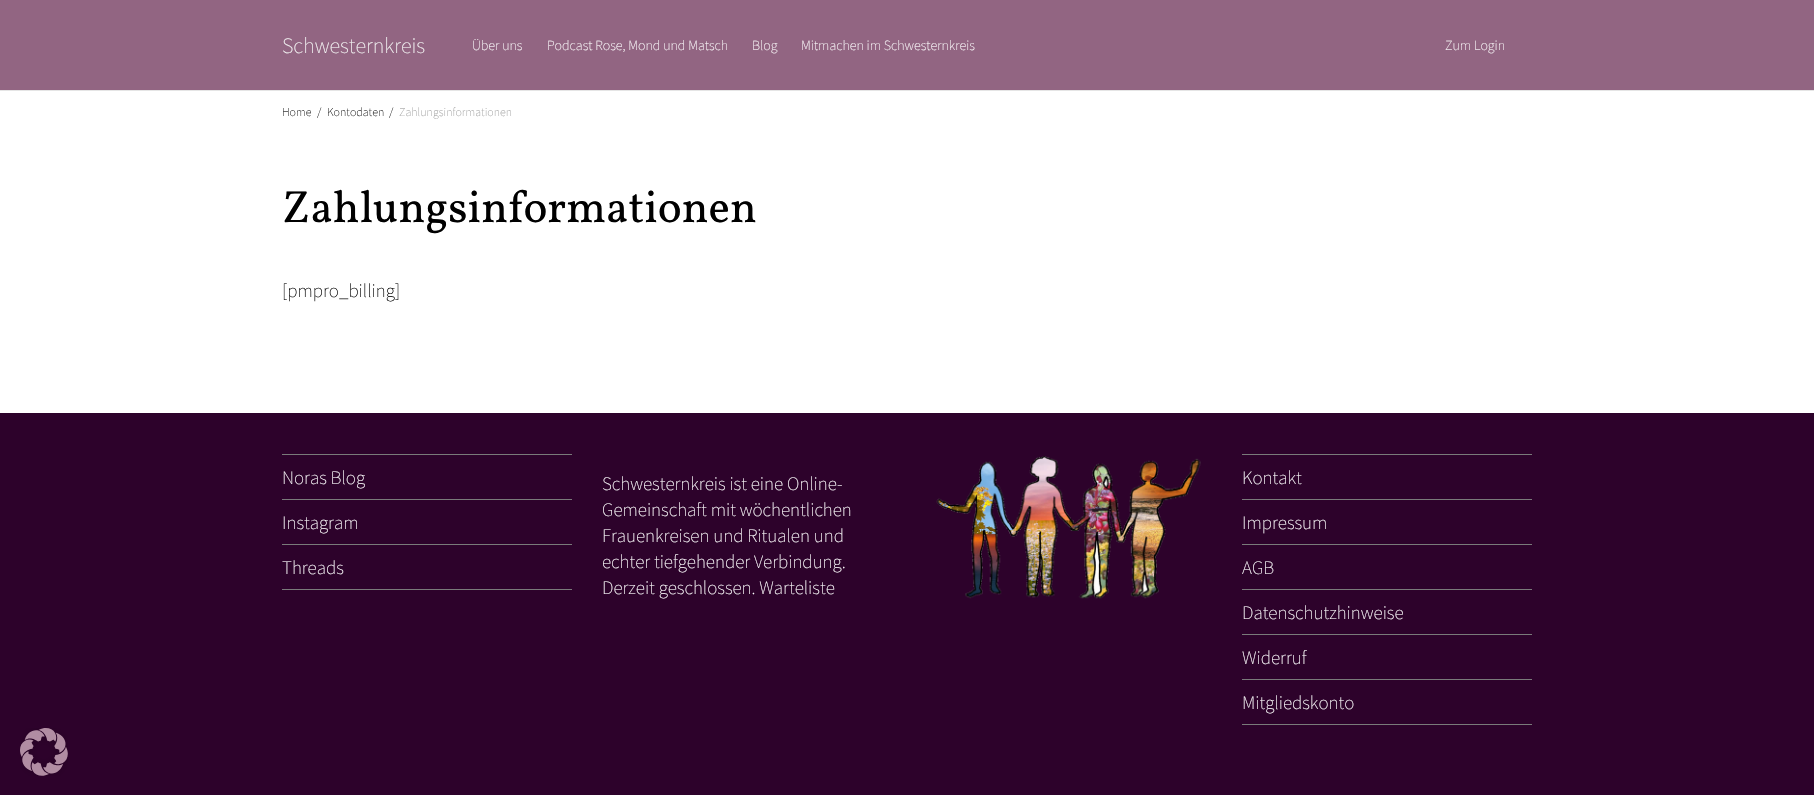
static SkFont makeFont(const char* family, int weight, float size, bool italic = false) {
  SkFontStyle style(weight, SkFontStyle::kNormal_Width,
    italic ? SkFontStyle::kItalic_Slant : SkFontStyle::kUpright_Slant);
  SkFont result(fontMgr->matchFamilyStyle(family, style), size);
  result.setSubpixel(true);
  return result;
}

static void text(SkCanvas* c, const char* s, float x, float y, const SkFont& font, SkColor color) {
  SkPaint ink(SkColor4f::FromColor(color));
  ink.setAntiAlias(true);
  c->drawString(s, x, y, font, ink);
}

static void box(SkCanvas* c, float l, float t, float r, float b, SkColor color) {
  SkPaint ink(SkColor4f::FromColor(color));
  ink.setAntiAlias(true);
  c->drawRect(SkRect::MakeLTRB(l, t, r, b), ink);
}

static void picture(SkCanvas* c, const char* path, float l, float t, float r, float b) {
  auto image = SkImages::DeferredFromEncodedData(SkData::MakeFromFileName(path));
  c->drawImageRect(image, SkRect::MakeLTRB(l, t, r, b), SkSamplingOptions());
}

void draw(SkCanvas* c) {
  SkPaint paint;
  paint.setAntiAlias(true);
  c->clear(0xffffffff);
  box(c, 0, 0, 1814, 90, 0xff926582);
  box(c, 0, 90, 1814, 91, 0xffe5e5e5);
  SkFont face1 = makeFont("Assistant", 200, 22);
  text(c, "Schwesternkreis", 282, 53, face1, 0xfff4f4f4);
  SkFont face2 = makeFont("Assistant", 200, 14);
  text(c, "Über uns", 472, 50, face2, 0xffffffff);
  text(c, "Podcast Rose, Mond und Matsch", 547, 50, face2, 0xffffffff);
  text(c, "Blog", 752, 50, face2, 0xffffffff);
  text(c, "Mitmachen im Schwesternkreis", 801, 50, face2, 0xffffffff);
  text(c, "Zum Login", 1445, 50, face2, 0xffffffff);
  SkFont face3 = makeFont("Assistant", 200, 12);
  text(c, "Home", 282, 116, face3, 0xff000000);
  text(c, "/", 317, 116, face3, 0xff000000);
  text(c, "Kontodaten", 327, 116, face3, 0xff000000);
  text(c, "/", 389, 116, face3, 0xff000000);
  text(c, "Zahlungsinformationen", 399, 116, face3, 0xff999999);
  SkFont face4 = makeFont("Vollkorn", 400, 45);
  text(c, "Zahlungsinformationen", 282, 222, face4, 0xff000000);
  SkFont face5 = makeFont("Assistant", 200, 19);
  text(c, "[pmpro_billing]", 282, 297, face5, 0xff000000);
  box(c, 0, 413, 1814, 795, 0xff2d022b);
  box(c, 282, 454, 572, 455, 0xff7a7a7a);
  box(c, 282, 499, 572, 500, 0xff7a7a7a);
  text(c, "Noras Blog", 282, 484, face5, 0xffffffff);
  box(c, 282, 544, 572, 545, 0xff7a7a7a);
  text(c, "Instagram", 282, 529, face5, 0xffffffff);
  box(c, 282, 589, 572, 590, 0xff7a7a7a);
  text(c, "Threads", 282, 574, face5, 0xffffffff);
  text(c, "Schwesternkreis ist eine Online-", 602, 490, face5, 0xffffffff);
  text(c, "Gemeinschaft mit wöchentlichen", 602, 516, face5, 0xffffffff);
  text(c, "Frauenkreisen und Ritualen und", 602, 542, face5, 0xffffffff);
  text(c, "echter tiefgehender Verbindung.", 602, 568, face5, 0xffffffff);
  text(c, "Derzeit geschlossen. Warteliste", 602, 594, face5, 0xffffffff);
  picture(c, "img_01.png", 936, 456, 1201, 599);
  box(c, 1242, 454, 1532, 455, 0xff7a7a7a);
  box(c, 1242, 499, 1532, 500, 0xff7a7a7a);
  text(c, "Kontakt", 1242, 484, face5, 0xffffffff);
  box(c, 1242, 544, 1532, 545, 0xff7a7a7a);
  text(c, "Impressum", 1242, 529, face5, 0xffffffff);
  box(c, 1242, 589, 1532, 590, 0xff7a7a7a);
  text(c, "AGB", 1242, 574, face5, 0xffffffff);
  box(c, 1242, 634, 1532, 635, 0xff7a7a7a);
  text(c, "Datenschutzhinweise", 1242, 619, face5, 0xffffffff);
  box(c, 1242, 679, 1532, 680, 0xff7a7a7a);
  text(c, "Widerruf", 1242, 664, face5, 0xffffffff);
  box(c, 1242, 724, 1532, 725, 0xff7a7a7a);
  text(c, "Mitgliedskonto", 1242, 709, face5, 0xffffffff);
  picture(c, "img_02.png", 20, 728, 68, 776);
}
